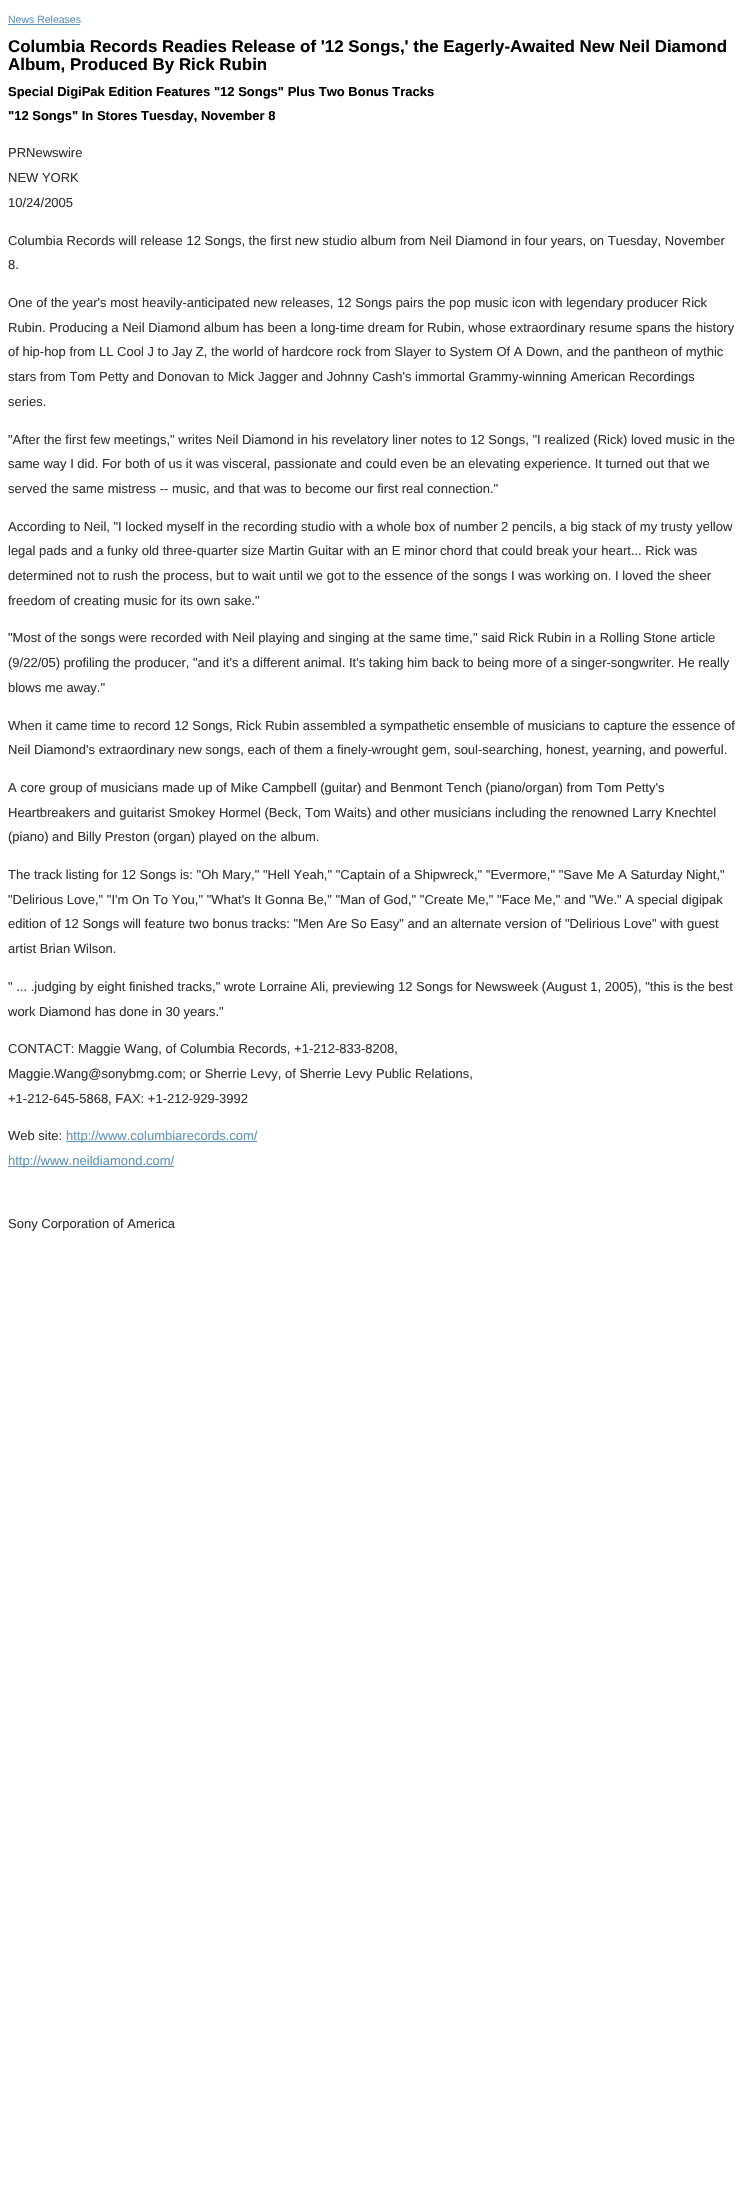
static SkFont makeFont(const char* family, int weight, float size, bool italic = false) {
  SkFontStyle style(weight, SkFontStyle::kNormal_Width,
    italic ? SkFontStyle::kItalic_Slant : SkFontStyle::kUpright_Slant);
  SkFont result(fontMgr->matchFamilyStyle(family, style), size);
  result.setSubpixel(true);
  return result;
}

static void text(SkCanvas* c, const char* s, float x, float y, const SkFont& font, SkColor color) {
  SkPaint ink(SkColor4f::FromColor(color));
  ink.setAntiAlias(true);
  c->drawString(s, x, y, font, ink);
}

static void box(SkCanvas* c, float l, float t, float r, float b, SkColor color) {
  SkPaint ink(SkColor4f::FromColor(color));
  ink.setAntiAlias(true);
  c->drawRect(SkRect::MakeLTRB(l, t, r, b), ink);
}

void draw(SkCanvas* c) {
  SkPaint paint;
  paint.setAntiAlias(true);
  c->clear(0xffffffff);
  SkFont face1 = makeFont("Liberation Sans", 400, 10.5f);
  text(c, "News Releases", 8, 23, face1, 0xff6095c3);
  box(c, 8, 24, 80, 25, 0xff6095c3);
  SkFont face2 = makeFont("Liberation Sans", 700, 16.9f);
  text(c, "Columbia Records Readies Release of '12 Songs,' the Eagerly-Awaited New Neil Diamond", 8, 52, face2, 0xff000000);
  text(c, "Album, Produced By Rick Rubin", 8, 70, face2, 0xff000000);
  SkFont face3 = makeFont("Liberation Sans", 700, 13);
  text(c, "Special DigiPak Edition Features \"12 Songs\" Plus Two Bonus Tracks", 8, 96, face3, 0xff000000);
  text(c, "\"12 Songs\" In Stores Tuesday, November 8", 8, 120, face3, 0xff000000);
  SkFont face4 = makeFont("Liberation Sans", 400, 13);
  text(c, "PRNewswire", 8, 157, face4, 0xff333333);
  text(c, "NEW YORK", 8, 182, face4, 0xff333333);
  text(c, "10/24/2005", 8, 207, face4, 0xff333333);
  text(c, "Columbia Records will release 12 Songs, the first new studio album from Neil Diamond in four years, on Tuesday, November", 8, 245, face4, 0xff333333);
  text(c, "8.", 8, 269, face4, 0xff333333);
  text(c, "One of the year's most heavily-anticipated new releases, 12 Songs pairs the pop music icon with legendary producer Rick", 8, 307, face4, 0xff333333);
  text(c, "Rubin. Producing a Neil Diamond album has been a long-time dream for Rubin, whose extraordinary resume spans the history", 8, 332, face4, 0xff333333);
  text(c, "of hip-hop from LL Cool J to Jay Z, the world of hardcore rock from Slayer to System Of A Down, and the pantheon of mythic", 8, 356, face4, 0xff333333);
  text(c, "stars from Tom Petty and Donovan to Mick Jagger and Johnny Cash's immortal Grammy-winning American Recordings", 8, 381, face4, 0xff333333);
  text(c, "series.", 8, 406, face4, 0xff333333);
  text(c, "\"After the first few meetings,\" writes Neil Diamond in his revelatory liner notes to 12 Songs, \"I realized (Rick) loved music in the", 8, 444, face4, 0xff333333);
  text(c, "same way I did. For both of us it was visceral, passionate and could even be an elevating experience. It turned out that we", 8, 468, face4, 0xff333333);
  text(c, "served the same mistress -- music, and that was to become our first real connection.\"", 8, 493, face4, 0xff333333);
  text(c, "According to Neil, \"I locked myself in the recording studio with a whole box of number 2 pencils, a big stack of my trusty yellow", 8, 531, face4, 0xff333333);
  text(c, "legal pads and a funky old three-quarter size Martin Guitar with an E minor chord that could break your heart... Rick was", 8, 555, face4, 0xff333333);
  text(c, "determined not to rush the process, but to wait until we got to the essence of the songs I was working on. I loved the sheer", 8, 580, face4, 0xff333333);
  text(c, "freedom of creating music for its own sake.\"", 8, 605, face4, 0xff333333);
  text(c, "\"Most of the songs were recorded with Neil playing and singing at the same time,\" said Rick Rubin in a Rolling Stone article", 8, 642, face4, 0xff333333);
  text(c, "(9/22/05) profiling the producer, \"and it's a different animal. It's taking him back to being more of a singer-songwriter. He really", 8, 667, face4, 0xff333333);
  text(c, "blows me away.\"", 8, 692, face4, 0xff333333);
  text(c, "When it came time to record 12 Songs, Rick Rubin assembled a sympathetic ensemble of musicians to capture the essence of", 8, 730, face4, 0xff333333);
  text(c, "Neil Diamond's extraordinary new songs, each of them a finely-wrought gem, soul-searching, honest, yearning, and powerful.", 8, 754, face4, 0xff333333);
  text(c, "A core group of musicians made up of Mike Campbell (guitar) and Benmont Tench (piano/organ) from Tom Petty's", 8, 792, face4, 0xff333333);
  text(c, "Heartbreakers and guitarist Smokey Hormel (Beck, Tom Waits) and other musicians including the renowned Larry Knechtel", 8, 817, face4, 0xff333333);
  text(c, "(piano) and Billy Preston (organ) played on the album.", 8, 841, face4, 0xff333333);
  text(c, "The track listing for 12 Songs is: \"Oh Mary,\" \"Hell Yeah,\" \"Captain of a Shipwreck,\" \"Evermore,\" \"Save Me A Saturday Night,\"", 8, 879, face4, 0xff333333);
  text(c, "\"Delirious Love,\" \"I'm On To You,\" \"What's It Gonna Be,\" \"Man of God,\" \"Create Me,\" \"Face Me,\" and \"We.\" A special digipak", 8, 904, face4, 0xff333333);
  text(c, "edition of 12 Songs will feature two bonus tracks: \"Men Are So Easy\" and an alternate version of \"Delirious Love\" with guest", 8, 928, face4, 0xff333333);
  text(c, "artist Brian Wilson.", 8, 953, face4, 0xff333333);
  text(c, "\" ... .judging by eight finished tracks,\" wrote Lorraine Ali, previewing 12 Songs for Newsweek (August 1, 2005), \"this is the best", 8, 991, face4, 0xff333333);
  text(c, "work Diamond has done in 30 years.\"", 8, 1016, face4, 0xff333333);
  text(c, "CONTACT: Maggie Wang, of Columbia Records, +1-212-833-8208,", 8, 1053, face4, 0xff333333);
  text(c, "Maggie.Wang@sonybmg.com; or Sherrie Levy, of Sherrie Levy Public Relations,", 8, 1078, face4, 0xff333333);
  text(c, "+1-212-645-5868, FAX: +1-212-929-3992", 8, 1103, face4, 0xff333333);
  text(c, "Web site:", 8, 1140, face4, 0xff333333);
  box(c, 66, 1141, 257, 1142, 0xff6095c3);
  text(c, "http://www.columbiarecords.com/", 66, 1140, face4, 0xff6095c3);
  box(c, 8, 1166, 174, 1167, 0xff6095c3);
  text(c, "http://www.neildiamond.com/", 8, 1165, face4, 0xff6095c3);
  text(c, "Sony Corporation of America", 8, 1228, face4, 0xff333333);
}
